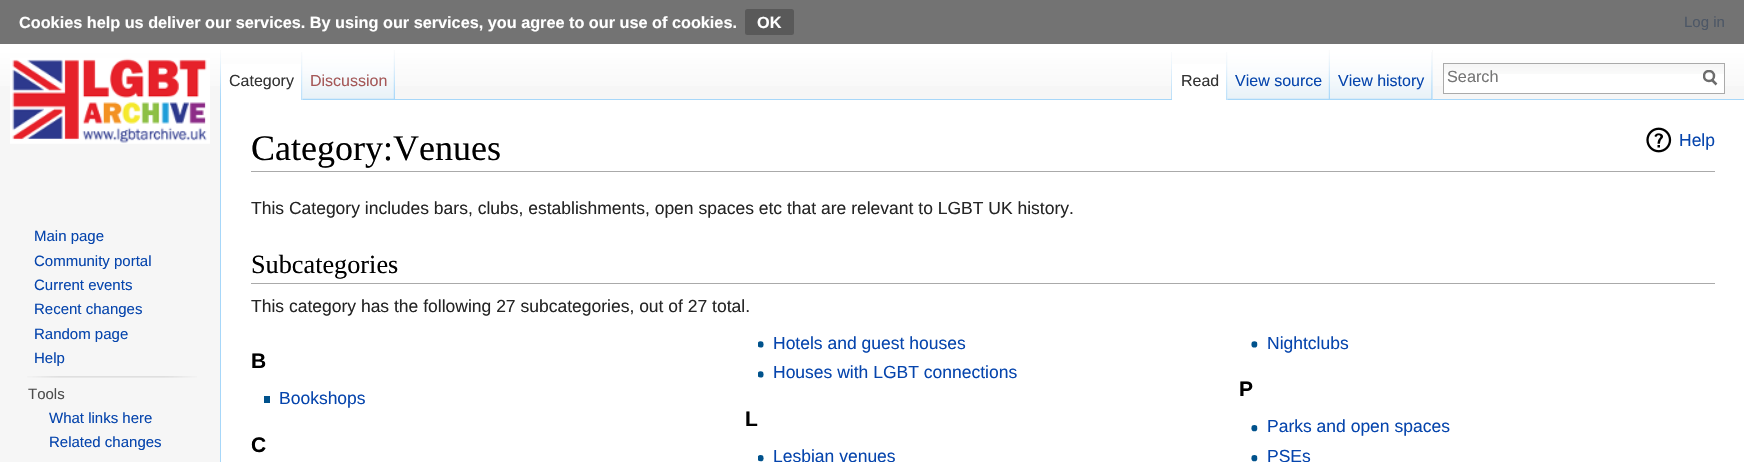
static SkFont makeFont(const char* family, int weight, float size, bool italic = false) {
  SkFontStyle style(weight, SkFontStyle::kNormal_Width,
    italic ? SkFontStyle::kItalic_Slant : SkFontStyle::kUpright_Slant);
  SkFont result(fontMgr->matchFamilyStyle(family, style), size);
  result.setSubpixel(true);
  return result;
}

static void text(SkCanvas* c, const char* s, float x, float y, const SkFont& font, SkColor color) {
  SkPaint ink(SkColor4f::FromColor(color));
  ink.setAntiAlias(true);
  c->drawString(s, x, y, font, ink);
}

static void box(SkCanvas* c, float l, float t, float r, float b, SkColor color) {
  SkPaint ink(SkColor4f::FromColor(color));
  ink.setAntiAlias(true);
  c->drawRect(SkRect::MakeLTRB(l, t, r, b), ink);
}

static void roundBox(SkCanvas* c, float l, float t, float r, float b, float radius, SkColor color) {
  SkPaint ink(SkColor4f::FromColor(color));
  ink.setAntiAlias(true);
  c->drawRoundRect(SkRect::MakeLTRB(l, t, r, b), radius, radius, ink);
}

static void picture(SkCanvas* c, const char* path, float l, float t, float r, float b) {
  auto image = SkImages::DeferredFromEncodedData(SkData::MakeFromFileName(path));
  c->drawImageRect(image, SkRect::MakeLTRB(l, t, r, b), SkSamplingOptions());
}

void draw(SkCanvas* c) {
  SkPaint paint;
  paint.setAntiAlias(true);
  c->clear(0xfff6f6f6);
  {
    const SkColor colors[] = {0xffffffff, 0xfff6f6f6};
    const float stops[] = {0.5f, 1};
    const SkPoint ends[] = {{873, 0}, {873, 100}};
    paint.setShader(SkGradientShader::MakeLinear(ends, colors, stops, 2, SkTileMode::kClamp));
    paint.setAlpha(255);
  }
  c->drawRect(SkRect::MakeLTRB(0, 44, 1744, 86), paint);
  {
    const SkColor colors[] = {0xff737373, 0xff717171};
    const float stops[] = {0.5f, 1};
    const SkPoint ends[] = {{873, 0}, {873, 100}};
    paint.setShader(SkGradientShader::MakeLinear(ends, colors, stops, 2, SkTileMode::kClamp));
    paint.setAlpha(255);
  }
  c->drawRect(SkRect::MakeLTRB(0, 0, 1744, 44), paint);
  SkFont face1 = makeFont("Liberation Sans", 700, 16.25f);
  text(c, "Cookies help us deliver our services. By using our services, you agree to our use of cookies.", 19, 28, face1, 0xffffffff);
  roundBox(c, 745, 9, 794, 35, 2.5f, 0xff595959);
  text(c, "OK", 757, 28, face1, 0xffffffff);
  SkFont face2 = makeFont("Liberation Sans", 400, 15);
  text(c, "Log in", 1684, 27, face2, 0xff4d5766);
  picture(c, "img_01.png", 220, 50, 221, 99);
  box(c, 221, 64, 303, 100, 0xffffffff);
  picture(c, "img_02.png", 301, 52, 303, 100);
  SkFont face3 = makeFont("Liberation Sans", 400, 16);
  text(c, "Category", 229, 86, face3, 0xff333333);
  picture(c, "img_03.png", 302, 50, 395, 100);
  picture(c, "img_04.png", 393, 50, 395, 99);
  text(c, "Discussion", 310, 86, face3, 0xffa55858);
  picture(c, "img_05.png", 1171, 52, 1172, 99);
  box(c, 395, 99, 1744, 100, 0xffa7d7f9);
  box(c, 1172, 64, 1228, 100, 0xffffffff);
  picture(c, "img_02.png", 1226, 52, 1228, 100);
  text(c, "Read", 1181, 86, face3, 0xff333333);
  picture(c, "img_06.png", 1227, 50, 1330, 100);
  picture(c, "img_04.png", 1328, 50, 1330, 99);
  text(c, "View source", 1235, 86, face3, 0xff0645ad);
  box(c, 1432, 50, 1433, 100, 0xfff3f3f3);
  picture(c, "img_07.png", 1330, 50, 1433, 100);
  picture(c, "img_08.png", 1431, 52, 1433, 100);
  text(c, "View history", 1338, 86, face3, 0xff0645ad);
  box(c, 1444, 74, 1724, 93, 0xffffffff);
  picture(c, "img_09.png", 1444, 64, 1724, 74);
  paint.setStyle(SkPaint::kStroke_Style);
  paint.setStrokeWidth(1);
  paint.setShader(nullptr);
  paint.setColor(0xffaaaaaa);
  c->drawRect(SkRect::MakeLTRB(1443.5f, 63.5f, 1724.5f, 93.5f), paint);
  SkFont face4 = makeFont("Liberation Sans", 400, 16.25f);
  text(c, "Search", 1447, 82, face4, 0xff757575);
  paint.setStrokeWidth(2.5f);
  paint.setColor(0xff6c6c6c);
  c->drawPath(SkPathBuilder().moveTo(1716.5f, 84.5f).lineTo(1711.5f, 79.5f).detach(), paint);
  c->save();
  c->clipRect(SkRect::MakeLTRB(1703, 70, 1718, 86));
  c->drawCircle(1709, 76, 5, paint);
  c->restore();
  picture(c, "img_10.png", 10, 58, 210, 144);
  text(c, "Main page", 34, 241, face2, 0xff0645ad);
  text(c, "Community portal", 34, 266, face2, 0xff0645ad);
  text(c, "Current events", 34, 290, face2, 0xff0645ad);
  text(c, "Recent changes", 34, 314, face2, 0xff0645ad);
  text(c, "Random page", 34, 339, face2, 0xff0645ad);
  text(c, "Help", 34, 363, face2, 0xff0645ad);
  picture(c, "img_11.png", 27, 376, 197, 378);
  text(c, "Tools", 28, 399, face2, 0xff4d4d4d);
  text(c, "What links here", 49, 423, face2, 0xff0645ad);
  text(c, "Related changes", 49, 447, face2, 0xff0645ad);
  box(c, 221, 100, 1744, 462, 0xffffffff);
  box(c, 220, 99, 221, 462, 0xffa7d7f9);
  box(c, 251, 171, 1715, 172, 0xffaaaaaa);
  SkFont face5 = makeFont("Liberation Serif", 400, 36);
  text(c, "Category:Venues", 251, 160, face5, 0xff000000);
  picture(c, "img_12.png", 1646, 127, 1672, 153);
  SkFont face6 = makeFont("Liberation Sans", 400, 17.5f);
  text(c, "Help", 1679, 146, face6, 0xff0645ad);
  text(c, "This Category includes bars, clubs, establishments, open spaces etc that are relevant to LGBT UK history.", 251, 214, face6, 0xff252525);
  box(c, 251, 283, 1715, 284, 0xffaaaaaa);
  SkFont face7 = makeFont("Liberation Serif", 400, 26.25f);
  text(c, "Subcategories", 251, 273, face7, 0xff000000);
  text(c, "This category has the following 27 subcategories, out of 27 total.", 251, 312, face6, 0xff252525);
  picture(c, "img_13.png", 758, 341, 764, 348);
  text(c, "Hotels and guest houses", 773, 349, face6, 0xff0645ad);
  picture(c, "img_13.png", 758, 371, 764, 378);
  text(c, "Houses with LGBT connections", 773, 378, face6, 0xff0645ad);
  picture(c, "img_14.png", 1251, 341, 1258, 348);
  text(c, "Nightclubs", 1267, 349, face6, 0xff0645ad);
  SkFont face8 = makeFont("Liberation Sans", 700, 21);
  text(c, "B", 251, 368, face8, 0xff000000);
  box(c, 264, 396, 270, 403, 0xff00528c);
  text(c, "Bookshops", 279, 404, face6, 0xff0645ad);
  text(c, "L", 745, 426, face8, 0xff000000);
  picture(c, "img_15.png", 758, 455, 764, 462);
  text(c, "Lesbian venues", 773, 462, face6, 0xff0645ad);
  text(c, "P", 1239, 396, face8, 0xff000000);
  picture(c, "img_16.png", 1251, 425, 1258, 432);
  text(c, "Parks and open spaces", 1267, 432, face6, 0xff0645ad);
  picture(c, "img_16.png", 1251, 455, 1258, 462);
  text(c, "PSEs", 1267, 462, face6, 0xff0645ad);
  text(c, "C", 251, 452, face8, 0xff000000);
}
